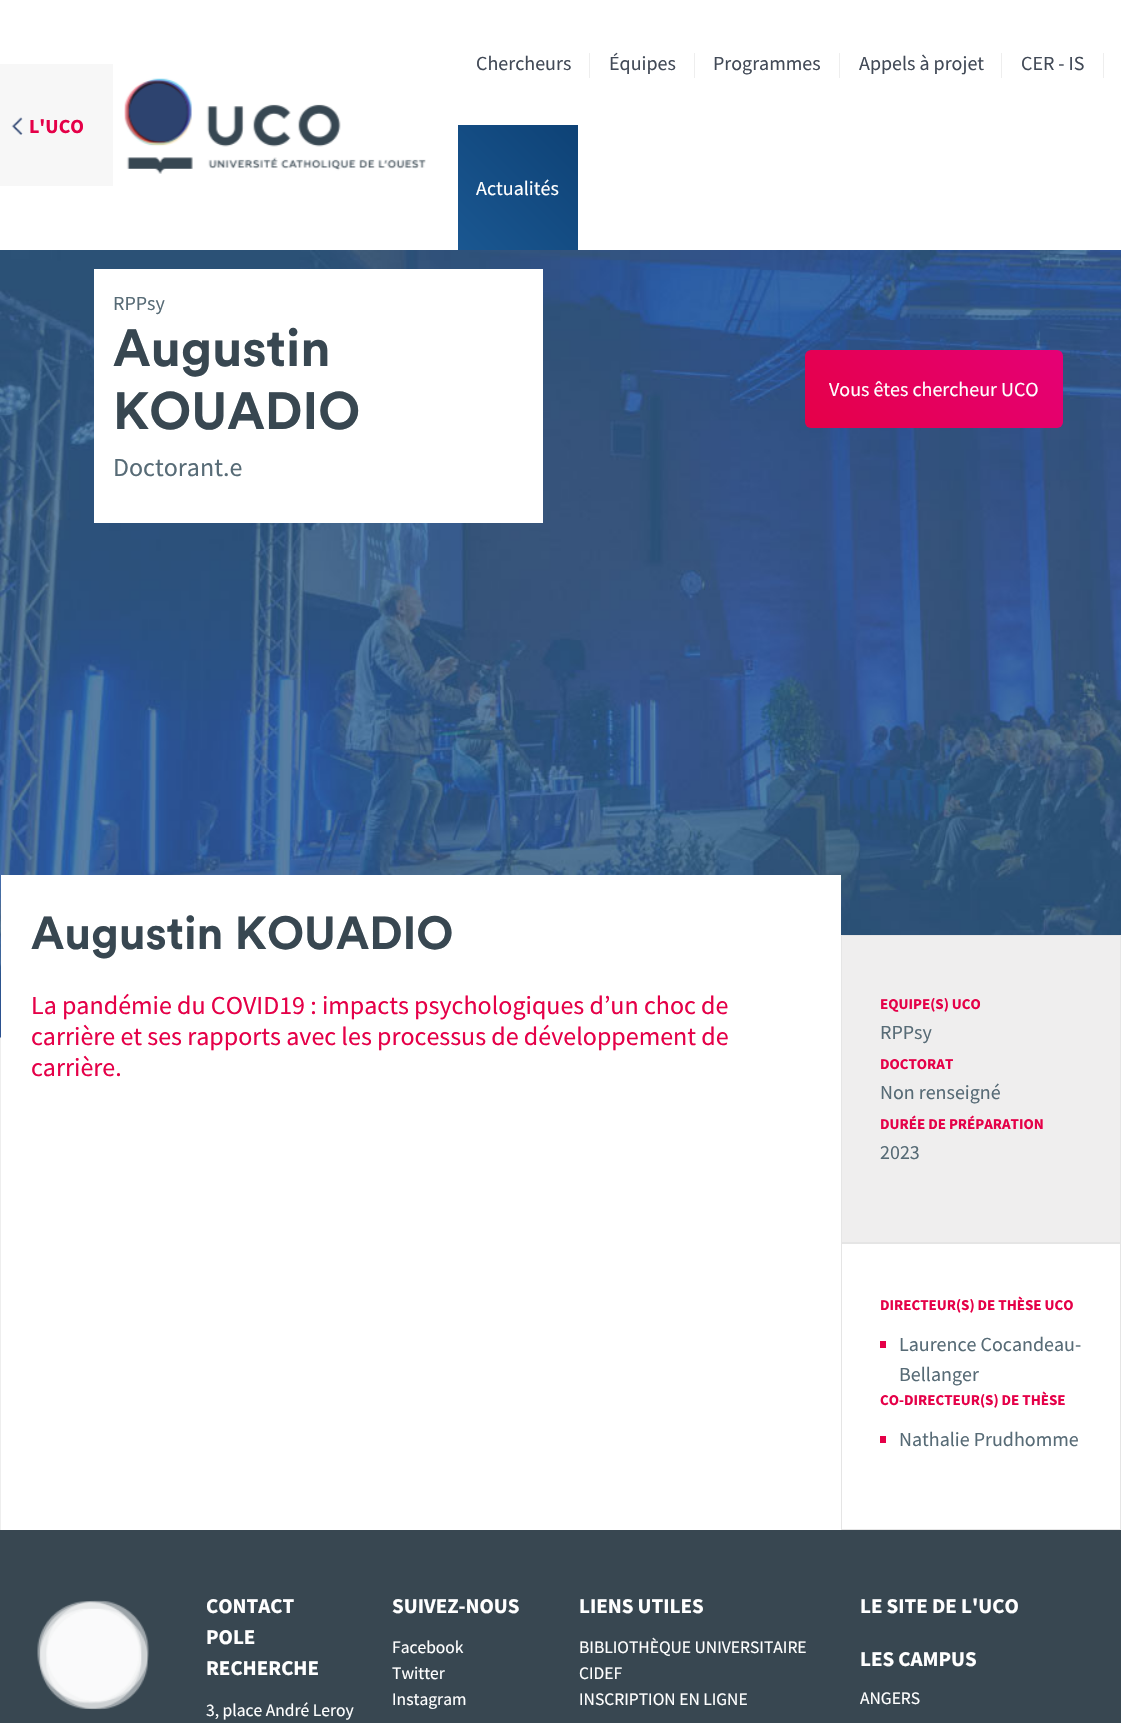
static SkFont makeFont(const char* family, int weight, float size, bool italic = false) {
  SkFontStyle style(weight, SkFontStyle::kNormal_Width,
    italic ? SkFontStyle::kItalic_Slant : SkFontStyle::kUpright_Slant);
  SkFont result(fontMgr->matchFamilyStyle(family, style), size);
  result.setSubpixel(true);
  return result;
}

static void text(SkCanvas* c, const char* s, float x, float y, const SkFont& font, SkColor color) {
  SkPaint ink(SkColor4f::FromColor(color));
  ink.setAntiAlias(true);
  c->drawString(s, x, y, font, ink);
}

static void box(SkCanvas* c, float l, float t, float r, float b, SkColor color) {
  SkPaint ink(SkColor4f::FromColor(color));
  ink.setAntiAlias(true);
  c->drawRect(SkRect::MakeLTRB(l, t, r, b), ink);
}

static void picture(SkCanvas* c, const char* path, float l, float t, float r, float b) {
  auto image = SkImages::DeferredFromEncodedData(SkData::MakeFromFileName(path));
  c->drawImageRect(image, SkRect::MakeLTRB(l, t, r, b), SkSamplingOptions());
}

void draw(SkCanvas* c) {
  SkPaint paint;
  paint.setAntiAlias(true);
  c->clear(0xffffffff);
  box(c, 0, 64, 113, 186, 0xfff7f7f7);
  picture(c, "img_01.png", 11, 117, 23, 135);
  SkFont face1 = makeFont("Source Sans Pro", 700, 20);
  text(c, "L'UCO", 29, 133, face1, 0xffe50048);
  picture(c, "img_02.png", 124, 78, 426, 174);
  SkFont face2 = makeFont("Source Sans Pro", 400, 20);
  text(c, "Chercheurs", 476, 70, face2, 0xff424a57);
  box(c, 589, 53, 590, 78, 0xffeeeeee);
  text(c, "Équipes", 609, 70, face2, 0xff424a57);
  box(c, 694, 53, 695, 78, 0xffeeeeee);
  text(c, "Programmes", 713, 70, face2, 0xff424a57);
  box(c, 839, 53, 840, 78, 0xffeeeeee);
  text(c, "Appels à projet", 859, 70, face2, 0xff424a57);
  box(c, 1001, 53, 1002, 78, 0xffeeeeee);
  text(c, "CER - IS", 1021, 70, face2, 0xff424a57);
  box(c, 1103, 53, 1104, 78, 0xffeeeeee);
  {
    const SkColor colors[] = {0xff0e4276, 0xff1a5791};
    const float stops[] = {0, 1};
    const SkPoint ends[] = {{579, 126}, {456, 249}};
    paint.setShader(SkGradientShader::MakeLinear(ends, colors, stops, 2, SkTileMode::kClamp));
    paint.setAlpha(255);
  }
  c->drawRect(SkRect::MakeLTRB(458, 125, 578, 250), paint);
  text(c, "Actualités", 476, 195, face2, 0xffffffff);
  box(c, 0, 1037, 1, 1530, 0xffeeeeee);
  picture(c, "img_03.png", 0, 250, 1121, 1038);
  box(c, 94, 269, 543, 523, 0xffffffff);
  text(c, "RPPsy", 113, 310, face2, 0xff576b76);
  SkFont face3 = makeFont("Circular", 700, 52);
  text(c, "Augustin", 113, 366, face3, 0xff384751);
  text(c, "KOUADIO", 113, 429, face3, 0xff384751);
  SkFont face4 = makeFont("Source Sans Pro", 400, 26);
  text(c, "Doctorant.e", 113, 476, face4, 0xff576b76);
  box(c, 1, 875, 841, 1038, 0xffffffff);
  SkFont face5 = makeFont("Circular", 700, 46);
  text(c, "Augustin KOUADIO", 31, 949, face5, 0xff384751);
  text(c, "La pandémie du COVID19 : impacts psychologiques d’un choc de", 31, 1014, face4, 0xffe50048);
  text(c, "carrière et ses rapports avec les processus de développement de", 31, 1045, face4, 0xffe50048);
  text(c, "carrière.", 31, 1076, face4, 0xffe50048);
  paint.setShader(nullptr);
  paint.setColor(0xffefeeee);
  c->drawRect(SkRect::MakeLTRB(841.5f, 935.5f, 1120.5f, 1242.5f), paint);
  paint.setStyle(SkPaint::kStroke_Style);
  paint.setStrokeWidth(1);
  paint.setColor(0xffe5e5e5);
  c->drawRect(SkRect::MakeLTRB(841.5f, 935.5f, 1120.5f, 1242.5f), paint);
  SkFont face6 = makeFont("Source Sans Pro", 700, 15);
  text(c, "EQUIPE(S) UCO", 880, 1009, face6, 0xffe50048);
  text(c, "RPPsy", 880, 1039, face2, 0xff576b76);
  text(c, "DOCTORAT", 880, 1069, face6, 0xffe50048);
  text(c, "Non renseigné", 880, 1099, face2, 0xff576b76);
  text(c, "DURÉE DE PRÉPARATION", 880, 1129, face6, 0xffe50048);
  text(c, "2023", 880, 1159, face2, 0xff576b76);
  c->drawRect(SkRect::MakeLTRB(841.5f, 1243.5f, 1120.5f, 1529.5f), paint);
  text(c, "DIRECTEUR(S) DE THÈSE UCO", 880, 1310, face6, 0xffe50048);
  box(c, 880, 1341, 886, 1348, 0xffe50048);
  text(c, "Laurence Cocandeau-", 899, 1351, face2, 0xff576b76);
  text(c, "Bellanger", 899, 1381, face2, 0xff576b76);
  text(c, "CO-DIRECTEUR(S) DE THÈSE", 880, 1405, face6, 0xffe50048);
  box(c, 880, 1436, 886, 1443, 0xffe50048);
  text(c, "Nathalie Prudhomme", 899, 1446, face2, 0xff576b76);
  paint.setStyle(SkPaint::kFill_Style);
  {
    const SkColor colors[] = {0xffe50048, 0xffe50076};
    const float stops[] = {0, 1};
    const SkPoint ends[] = {{850, 473}, {1018, 305}};
    paint.setShader(SkGradientShader::MakeLinear(ends, colors, stops, 2, SkTileMode::kClamp));
    paint.setAlpha(255);
  }
  c->drawRoundRect(SkRect::MakeLTRB(805, 350, 1063, 428), 6, 6, paint);
  text(c, "Vous êtes chercheur UCO", 829, 396, face2, 0xffffffff);
  box(c, 0, 1530, 1121, 1723, 0xff384751);
  picture(c, "img_04.png", 37, 1600, 149, 1710);
  SkFont face7 = makeFont("Source Sans Pro", 700, 21);
  text(c, "CONTACT", 206, 1613, face7, 0xffffffff);
  text(c, "POLE", 206, 1644, face7, 0xffffffff);
  text(c, "RECHERCHE", 206, 1675, face7, 0xffffffff);
  SkFont face8 = makeFont("Source Sans Pro", 400, 17.5f);
  text(c, "3, place André Leroy", 206, 1716, face8, 0xffffffff);
  text(c, "SUIVEZ-NOUS", 392, 1613, face7, 0xffffffff);
  text(c, "Facebook", 392, 1653, face8, 0xffffffff);
  text(c, "Twitter", 392, 1679, face8, 0xffffffff);
  text(c, "Instagram", 392, 1705, face8, 0xffffffff);
  text(c, "LIENS UTILES", 579, 1613, face7, 0xffffffff);
  text(c, "BIBLIOTHÈQUE UNIVERSITAIRE", 579, 1653, face8, 0xffffffff);
  text(c, "CIDEF", 579, 1679, face8, 0xffffffff);
  text(c, "INSCRIPTION EN LIGNE", 579, 1705, face8, 0xffffffff);
  text(c, "LE SITE DE L'UCO", 860, 1613, face7, 0xffffffff);
  text(c, "LES CAMPUS", 860, 1666, face7, 0xffffffff);
  text(c, "ANGERS", 860, 1704, face8, 0xffffffff);
}
